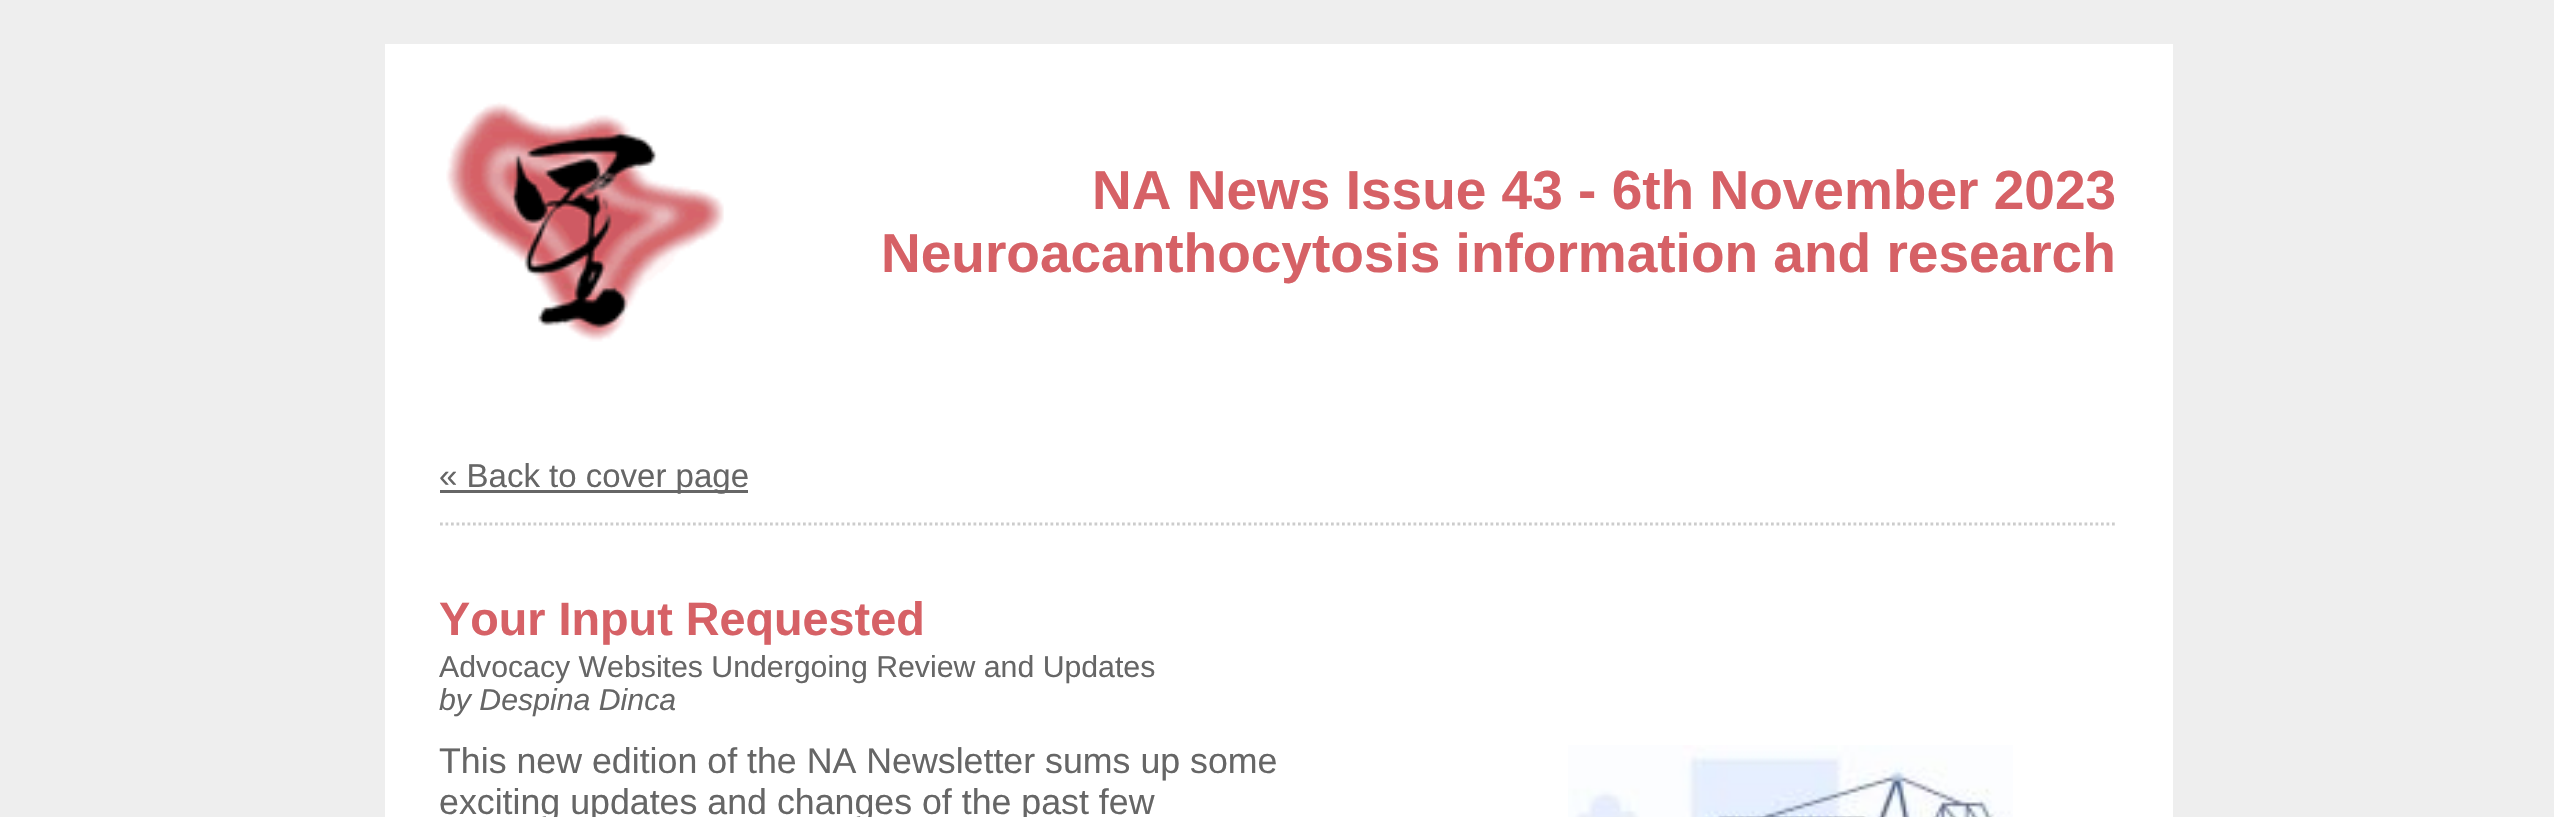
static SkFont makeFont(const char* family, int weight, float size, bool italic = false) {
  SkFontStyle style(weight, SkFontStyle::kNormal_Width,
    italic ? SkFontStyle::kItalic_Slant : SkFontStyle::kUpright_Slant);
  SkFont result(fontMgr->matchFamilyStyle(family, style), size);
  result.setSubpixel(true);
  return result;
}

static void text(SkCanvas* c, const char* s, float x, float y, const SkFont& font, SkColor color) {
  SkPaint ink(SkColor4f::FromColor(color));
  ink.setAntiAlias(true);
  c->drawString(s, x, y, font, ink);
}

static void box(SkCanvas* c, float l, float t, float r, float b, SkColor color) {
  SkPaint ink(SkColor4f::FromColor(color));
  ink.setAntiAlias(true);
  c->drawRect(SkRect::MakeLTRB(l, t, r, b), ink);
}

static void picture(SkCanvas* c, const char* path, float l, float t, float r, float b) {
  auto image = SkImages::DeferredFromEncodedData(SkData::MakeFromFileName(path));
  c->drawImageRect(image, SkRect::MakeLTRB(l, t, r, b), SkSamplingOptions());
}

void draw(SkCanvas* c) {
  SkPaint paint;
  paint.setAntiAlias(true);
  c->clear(0xffeeeeee);
  box(c, 385, 44, 2173, 817, 0xffffffff);
  picture(c, "img_01.png", 446, 102, 724, 342);
  SkFont face1 = makeFont("Liberation Sans", 700, 55);
  text(c, "NA News Issue 43 - 6th November 2023", 1092, 209, face1, 0xffd66166);
  text(c, "Neuroacanthocytosis information and research", 881, 272, face1, 0xffd66166);
  paint.setStyle(SkPaint::kStroke_Style);
  paint.setStrokeWidth(2.8f);
  paint.setColor(0xffcccccc);
  paint.setPathEffect(SkDashPathEffect::Make({{2.75f, 2.75f}}, 0));
  c->drawPath(SkPathBuilder().moveTo(440, 524).lineTo(2117.5f, 524).detach(), paint);
  paint.setPathEffect(nullptr);
  box(c, 440, 490, 748, 493, 0xff666666);
  SkFont face2 = makeFont("Liberation Sans", 400, 33);
  text(c, "« Back to cover page", 439, 487, face2, 0xff666666);
  SkFont face3 = makeFont("Liberation Sans", 700, 46.75f);
  text(c, "Your Input Requested", 439, 635, face3, 0xffd66166);
  SkFont face4 = makeFont("Liberation Sans", 400, 30.25f);
  text(c, "Advocacy Websites Undergoing Review and Updates", 439, 677, face4, 0xff666666);
  SkFont face5 = makeFont("Liberation Sans", 400, 30.25f, true);
  text(c, "by Despina Dinca", 439, 710, face5, 0xff666666);
  SkFont face6 = makeFont("Liberation Sans", 400, 35.75f);
  text(c, "This new edition of the NA Newsletter sums up some", 439, 773, face6, 0xff666666);
  picture(c, "img_02.png", 1568, 745, 2013, 817);
  text(c, "exciting updates and changes of the past few", 439, 814, face6, 0xff666666);
}
